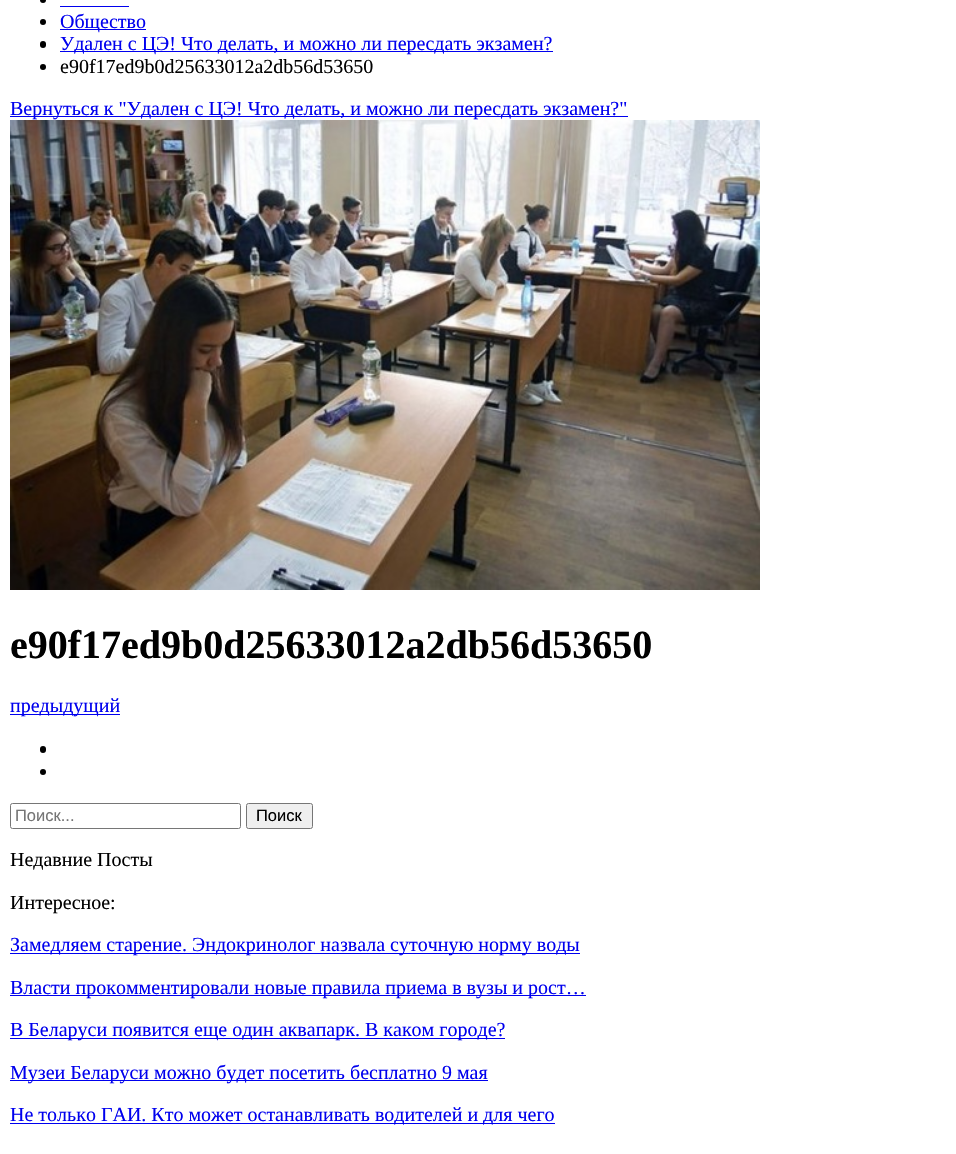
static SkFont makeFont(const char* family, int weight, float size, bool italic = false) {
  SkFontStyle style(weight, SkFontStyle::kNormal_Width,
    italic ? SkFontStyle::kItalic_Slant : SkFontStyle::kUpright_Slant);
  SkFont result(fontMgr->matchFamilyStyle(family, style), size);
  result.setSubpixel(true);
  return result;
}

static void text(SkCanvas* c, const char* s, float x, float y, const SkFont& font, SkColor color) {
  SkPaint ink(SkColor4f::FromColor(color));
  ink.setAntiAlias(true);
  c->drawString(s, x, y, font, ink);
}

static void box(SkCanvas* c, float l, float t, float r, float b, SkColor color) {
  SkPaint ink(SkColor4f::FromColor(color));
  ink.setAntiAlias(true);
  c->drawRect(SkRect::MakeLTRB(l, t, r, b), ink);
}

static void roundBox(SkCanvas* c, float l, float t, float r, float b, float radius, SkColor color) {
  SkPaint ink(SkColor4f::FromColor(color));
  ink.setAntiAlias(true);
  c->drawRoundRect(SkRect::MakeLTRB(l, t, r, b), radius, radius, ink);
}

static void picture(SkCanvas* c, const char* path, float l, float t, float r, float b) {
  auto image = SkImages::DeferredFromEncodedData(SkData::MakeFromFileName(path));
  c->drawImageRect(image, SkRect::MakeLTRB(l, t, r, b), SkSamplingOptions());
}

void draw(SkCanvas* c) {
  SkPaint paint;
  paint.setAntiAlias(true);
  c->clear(0xffffffff);
  paint.setColor(0xff000000);
  c->drawCircle(43, 0, 3, paint);
  box(c, 60, 6, 129, 7, 0xff0000ee);
  c->drawCircle(43, 22, 3, paint);
  box(c, 60, 29, 146, 30, 0xff0000ee);
  SkFont face1 = makeFont("Liberation Serif", 400, 20);
  text(c, "Общество", 60, 28, face1, 0xff0000ee);
  roundBox(c, 40, 41, 46, 48, 3, 0xff000000);
  box(c, 60, 51, 553, 52, 0xff0000ee);
  text(c, "Удален с ЦЭ! Что делать, и можно ли пересдать экзамен?", 60, 50, face1, 0xff0000ee);
  c->drawCircle(43, 67, 3, paint);
  text(c, "e90f17ed9b0d25633012a2db56d53650", 60, 73, face1, 0xff000000);
  box(c, 10, 116, 628, 117, 0xff0000ee);
  text(c, "Вернуться к \"Удален с ЦЭ! Что делать, и можно ли пересдать экзамен?\"", 10, 115, face1, 0xff0000ee);
  picture(c, "img_01.png", 10, 120, 760, 590);
  SkFont face2 = makeFont("Liberation Serif", 700, 40);
  text(c, "e90f17ed9b0d25633012a2db56d53650", 10, 658, face2, 0xff000000);
  box(c, 10, 714, 120, 715, 0xff0000ee);
  text(c, "предыдущий", 10, 712, face1, 0xff0000ee);
  roundBox(c, 40, 746, 46, 753, 3, 0xff000000);
  c->drawCircle(43, 772, 3, paint);
  paint.setStyle(SkPaint::kStroke_Style);
  paint.setStrokeWidth(1);
  paint.setColor(0xff767676);
  c->drawRoundRect(SkRect::MakeLTRB(10.5f, 803.5f, 240.5f, 828.5f), 2, 2, paint);
  SkFont face3 = makeFont("Liberation Sans", 400, 16.5f);
  text(c, "Поиск...", 15, 821, face3, 0xff757575);
  paint.setStyle(SkPaint::kFill_Style);
  paint.setColor(0xffefefef);
  c->drawRoundRect(SkRect::MakeLTRB(246.5f, 803.5f, 312.5f, 828.5f), 2, 2, paint);
  paint.setStyle(SkPaint::kStroke_Style);
  paint.setColor(0xff767676);
  c->drawRoundRect(SkRect::MakeLTRB(246.5f, 803.5f, 312.5f, 828.5f), 2, 2, paint);
  text(c, "Поиск", 256, 821, face3, 0xff000000);
  text(c, "Недавние Посты", 10, 866, face1, 0xff000000);
  text(c, "Интересное:", 10, 909, face1, 0xff000000);
  box(c, 10, 953, 580, 954, 0xff0000ee);
  text(c, "Замедляем старение. Эндокринолог назвала суточную норму воды", 10, 951, face1, 0xff0000ee);
  box(c, 10, 995, 586, 996, 0xff0000ee);
  text(c, "Власти прокомментировали новые правила приема в вузы и рост…", 10, 994, face1, 0xff0000ee);
  box(c, 10, 1038, 505, 1039, 0xff0000ee);
  text(c, "В Беларуси появится еще один аквапарк. В каком городе?", 10, 1036, face1, 0xff0000ee);
  box(c, 10, 1080, 488, 1081, 0xff0000ee);
  text(c, "Музеи Беларуси можно будет посетить бесплатно 9 мая", 10, 1079, face1, 0xff0000ee);
  box(c, 10, 1123, 555, 1124, 0xff0000ee);
  text(c, "Не только ГАИ. Кто может останавливать водителей и для чего", 10, 1121, face1, 0xff0000ee);
}
